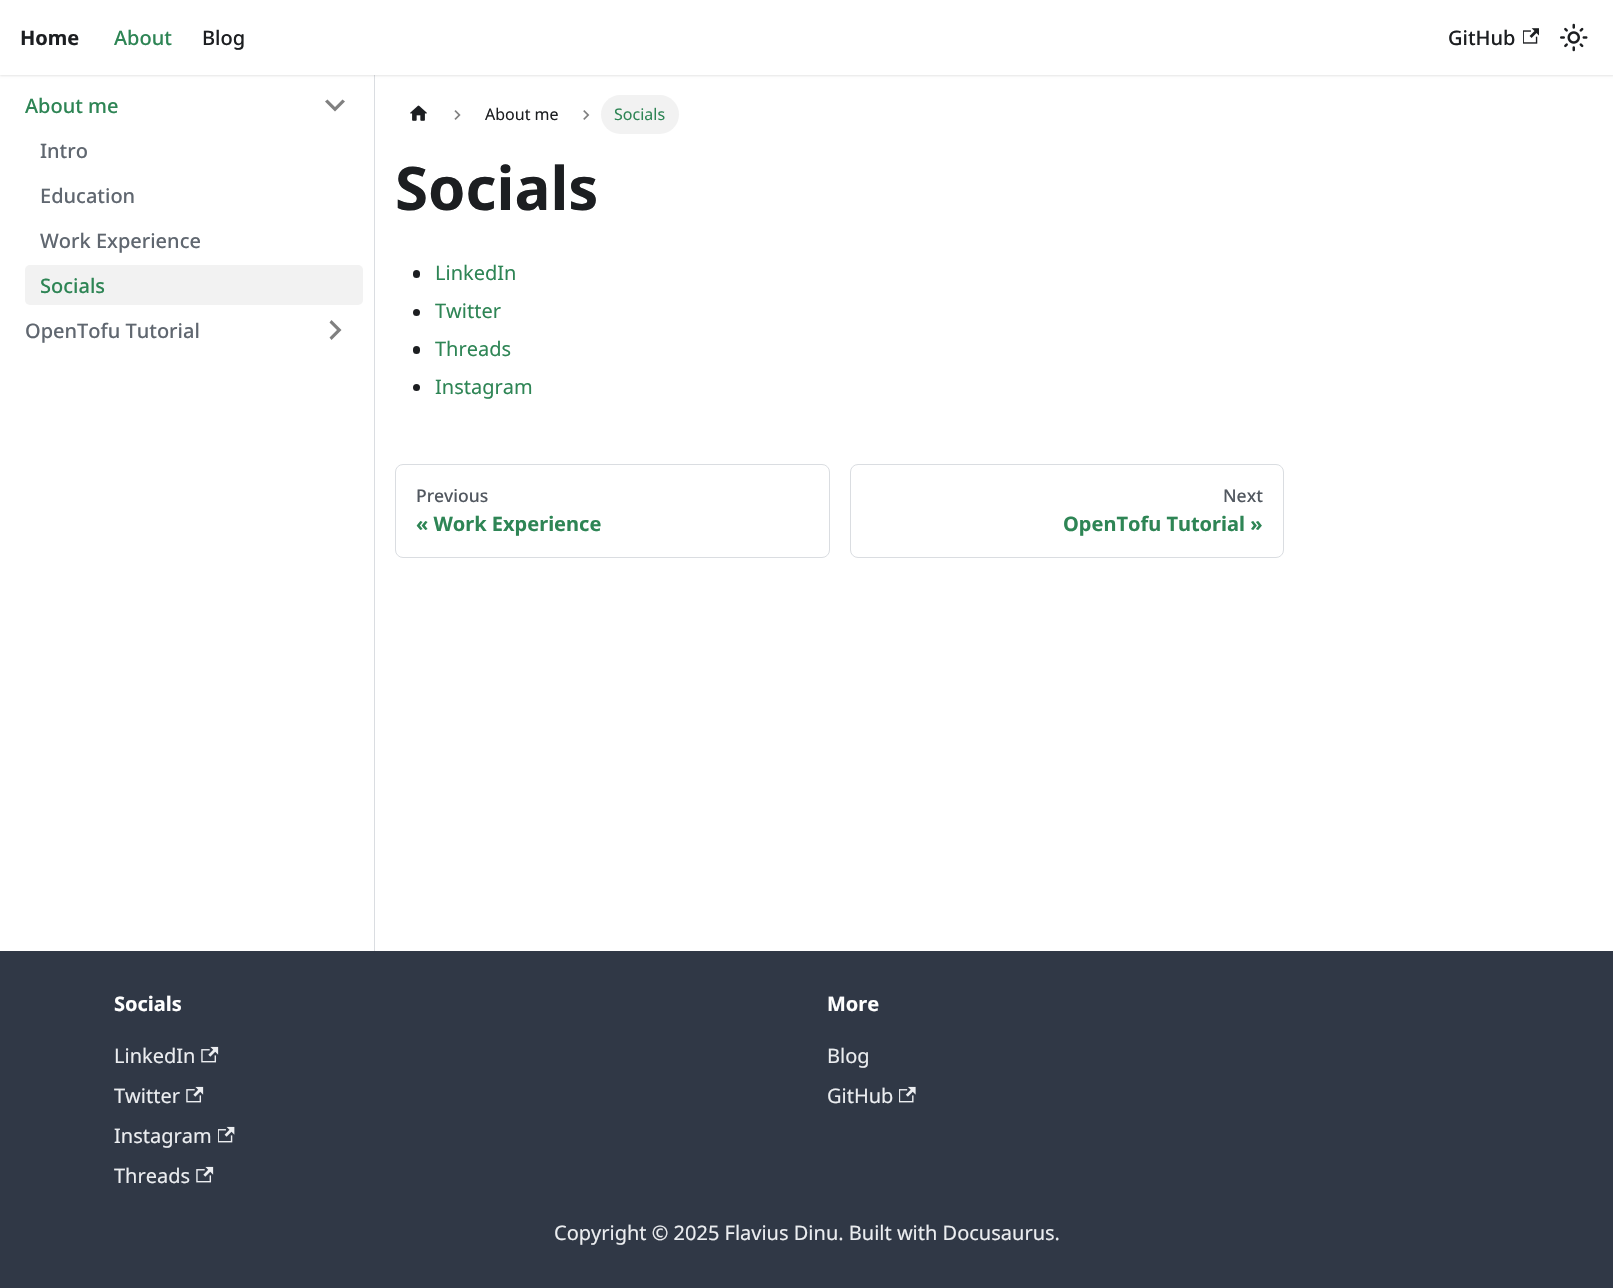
static SkFont makeFont(const char* family, int weight, float size, bool italic = false) {
  SkFontStyle style(weight, SkFontStyle::kNormal_Width,
    italic ? SkFontStyle::kItalic_Slant : SkFontStyle::kUpright_Slant);
  SkFont result(fontMgr->matchFamilyStyle(family, style), size);
  result.setSubpixel(true);
  return result;
}

static void text(SkCanvas* c, const char* s, float x, float y, const SkFont& font, SkColor color) {
  SkPaint ink(SkColor4f::FromColor(color));
  ink.setAntiAlias(true);
  c->drawString(s, x, y, font, ink);
}

static void box(SkCanvas* c, float l, float t, float r, float b, SkColor color) {
  SkPaint ink(SkColor4f::FromColor(color));
  ink.setAntiAlias(true);
  c->drawRect(SkRect::MakeLTRB(l, t, r, b), ink);
}

static void roundBox(SkCanvas* c, float l, float t, float r, float b, float radius, SkColor color) {
  SkPaint ink(SkColor4f::FromColor(color));
  ink.setAntiAlias(true);
  c->drawRoundRect(SkRect::MakeLTRB(l, t, r, b), radius, radius, ink);
}

static void picture(SkCanvas* c, const char* path, float l, float t, float r, float b) {
  auto image = SkImages::DeferredFromEncodedData(SkData::MakeFromFileName(path));
  c->drawImageRect(image, SkRect::MakeLTRB(l, t, r, b), SkSamplingOptions());
}

void draw(SkCanvas* c) {
  SkPaint paint;
  paint.setAntiAlias(true);
  c->clear(0xffffffff);
  box(c, 374, 75, 375, 951, 0xffdadde1);
  paint.setColor(0x1a000000);
  paint.setMaskFilter(SkMaskFilter::MakeBlur(kNormal_SkBlurStyle, 1));
  c->drawRect(SkRect::MakeLTRB(0, 1, 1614, 76), paint);
  paint.setMaskFilter(nullptr);
  box(c, 0, 0, 1613, 75, 0xffffffff);
  SkFont face1 = makeFont("Noto Sans", 700, 20);
  text(c, "Home", 20, 45, face1, 0xff1c1e21);
  SkFont face2 = makeFont("Noto Sans", 500, 20);
  text(c, "About", 114, 45, face2, 0xff2e8555);
  text(c, "Blog", 202, 45, face2, 0xff1c1e21);
  text(c, "GitHub", 1448, 45, face2, 0xff1c1e21);
  picture(c, "img_01.png", 1523, 28, 1539, 44);
  picture(c, "img_02.png", 1560, 23, 1588, 52);
  text(c, "About me", 25, 113, face2, 0xff2e8555);
  paint.setColor(0xff808080);
  c->drawPath(SkPathBuilder().moveTo(342.5f, 99.5f).lineTo(335, 107).lineTo(327.5f, 99.5f).lineTo(325, 101.5f).lineTo(335, 111.5f).lineTo(345, 101.5f).close().detach(), paint);
  text(c, "Intro", 40, 158, face2, 0xff606770);
  text(c, "Education", 40, 203, face2, 0xff606770);
  text(c, "Work Experience", 40, 248, face2, 0xff606770);
  roundBox(c, 25, 265, 363, 305, 5, 0xfff2f2f2);
  text(c, "Socials", 40, 293, face2, 0xff2e8555);
  text(c, "OpenTofu Tutorial", 25, 338, face2, 0xff606770);
  c->drawPath(SkPathBuilder().moveTo(329.5f, 322.5f).lineTo(337, 330).lineTo(329.5f, 337.5f).lineTo(331.5f, 340).lineTo(341.5f, 330).lineTo(331.5f, 320).close().detach(), paint);
  picture(c, "img_03.png", 410, 105, 427, 121);
  picture(c, "img_04.png", 454, 110, 461, 120);
  SkFont face3 = makeFont("Noto Sans", 400, 16);
  text(c, "About me", 485, 120, face3, 0xff1c1e21);
  picture(c, "img_05.png", 583, 110, 590, 120);
  roundBox(c, 601, 95, 679, 134, 19.5f, 0xfff2f2f2);
  text(c, "Socials", 614, 120, face3, 0xff2e8555);
  SkFont face4 = makeFont("Noto Sans", 700, 60);
  text(c, "Socials", 395, 210, face4, 0xff1c1e21);
  roundBox(c, 413, 270, 420, 278, 3.5f, 0xff1c1e21);
  SkFont face5 = makeFont("Noto Sans", 400, 20);
  text(c, "LinkedIn", 435, 280, face5, 0xff2e8555);
  paint.setColor(0xff1c1e21);
  c->drawCircle(416.5f, 312.5f, 3.5f, paint);
  text(c, "Twitter", 435, 318, face5, 0xff2e8555);
  roundBox(c, 413, 346, 420, 354, 3.5f, 0xff1c1e21);
  text(c, "Threads", 435, 356, face5, 0xff2e8555);
  c->drawCircle(416.5f, 387.5f, 3.5f, paint);
  text(c, "Instagram", 435, 394, face5, 0xff2e8555);
  paint.setStyle(SkPaint::kStroke_Style);
  paint.setStrokeWidth(1);
  paint.setColor(0xffdadde1);
  c->drawRoundRect(SkRect::MakeLTRB(395.5f, 464.5f, 829.5f, 557.5f), 7.5f, 7.5f, paint);
  SkFont face6 = makeFont("Noto Sans", 500, 17.5f);
  text(c, "Previous", 416, 502, face6, 0xff525860);
  text(c, "« Work Experience", 416, 531, face1, 0xff2e8555);
  c->drawRoundRect(SkRect::MakeLTRB(850.5f, 464.5f, 1283.5f, 557.5f), 7.5f, 7.5f, paint);
  text(c, "Next", 1223, 502, face6, 0xff525860);
  text(c, "OpenTofu Tutorial »", 1063, 531, face1, 0xff2e8555);
  box(c, 0, 951, 1613, 1288, 0xff303846);
  text(c, "Socials", 114, 1011, face1, 0xffffffff);
  text(c, "LinkedIn", 114, 1063, face5, 0xffebedf0);
  picture(c, "img_06.png", 201, 1046, 219, 1063);
  text(c, "Twitter", 114, 1103, face5, 0xffebedf0);
  picture(c, "img_06.png", 186, 1086, 204, 1103);
  text(c, "Instagram", 114, 1143, face5, 0xffebedf0);
  picture(c, "img_07.png", 218, 1126, 235, 1143);
  text(c, "Threads", 114, 1183, face5, 0xffebedf0);
  picture(c, "img_06.png", 196, 1166, 214, 1183);
  text(c, "More", 827, 1011, face1, 0xffffffff);
  text(c, "Blog", 827, 1063, face5, 0xffebedf0);
  text(c, "GitHub", 827, 1103, face5, 0xffebedf0);
  picture(c, "img_08.png", 899, 1086, 916, 1103);
  text(c, "Copyright © 2025 Flavius Dinu. Built with Docusaurus.", 554, 1240, face5, 0xffebedf0);
}
